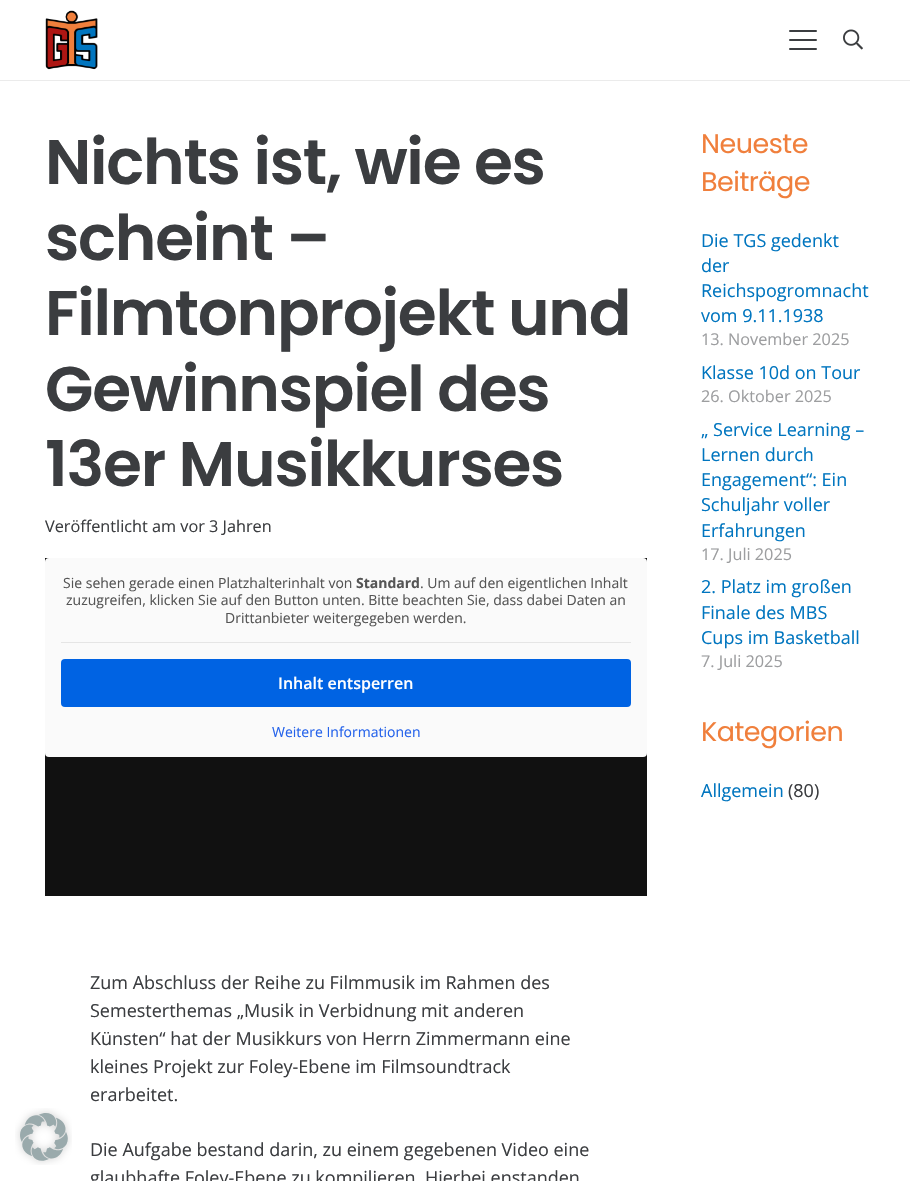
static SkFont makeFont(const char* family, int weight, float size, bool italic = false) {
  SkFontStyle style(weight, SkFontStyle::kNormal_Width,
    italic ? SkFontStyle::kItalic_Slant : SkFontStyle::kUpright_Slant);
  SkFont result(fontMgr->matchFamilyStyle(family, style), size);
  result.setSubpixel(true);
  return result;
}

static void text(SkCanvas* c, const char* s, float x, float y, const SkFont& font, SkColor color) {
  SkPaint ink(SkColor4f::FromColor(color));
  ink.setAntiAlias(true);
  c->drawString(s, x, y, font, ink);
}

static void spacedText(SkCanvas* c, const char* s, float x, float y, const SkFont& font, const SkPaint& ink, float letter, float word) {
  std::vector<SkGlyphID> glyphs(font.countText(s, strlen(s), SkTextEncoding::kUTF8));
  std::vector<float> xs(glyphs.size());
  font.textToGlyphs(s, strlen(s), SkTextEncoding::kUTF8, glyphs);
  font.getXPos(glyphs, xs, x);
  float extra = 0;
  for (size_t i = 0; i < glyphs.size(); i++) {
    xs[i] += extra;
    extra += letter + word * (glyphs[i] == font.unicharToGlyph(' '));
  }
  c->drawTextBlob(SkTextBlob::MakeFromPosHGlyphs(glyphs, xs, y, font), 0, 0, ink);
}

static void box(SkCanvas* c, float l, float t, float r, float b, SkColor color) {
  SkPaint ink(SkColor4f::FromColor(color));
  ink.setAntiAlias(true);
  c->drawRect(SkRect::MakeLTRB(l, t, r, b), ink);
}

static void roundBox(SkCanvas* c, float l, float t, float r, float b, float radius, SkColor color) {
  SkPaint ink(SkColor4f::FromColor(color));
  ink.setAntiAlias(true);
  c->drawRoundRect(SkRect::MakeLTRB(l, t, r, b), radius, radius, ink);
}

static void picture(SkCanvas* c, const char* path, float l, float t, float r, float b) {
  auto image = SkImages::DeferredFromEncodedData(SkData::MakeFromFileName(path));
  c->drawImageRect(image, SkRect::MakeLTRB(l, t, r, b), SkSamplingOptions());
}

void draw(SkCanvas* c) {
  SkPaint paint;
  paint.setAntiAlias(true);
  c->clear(0xffffffff);
  picture(c, "img_01.png", 15, 1108, 72, 1165);
  box(c, 0, 80, 910, 81, 0xffebebeb);
  picture(c, "img_02.png", 45, 10, 98, 70);
  roundBox(c, 789, 39, 817, 41, 1, 0xff3b3d40);
  roundBox(c, 789, 30, 817, 32, 1, 0xff3b3d40);
  roundBox(c, 789, 48, 817, 50, 1, 0xff3b3d40);
  picture(c, "img_03.png", 843, 29, 863, 50);
  SkFont face1 = makeFont("Poppins", 600, 63);
  paint.setColor(0xff3b3d40);
  spacedText(c, "Nichts ist, wie es", 45, 184, face1, paint, -1.25f, 0);
  spacedText(c, "scheint –", 45, 260, face1, paint, -1.25f, 0);
  spacedText(c, "Filmtonprojekt und", 45, 335, face1, paint, -1.25f, 0);
  spacedText(c, "Gewinnspiel des", 45, 411, face1, paint, -1.25f, 0);
  spacedText(c, "13er Musikkurses", 45, 486, face1, paint, -1.25f, 0);
  SkFont face2 = makeFont("Open Sans", 400, 16.25f);
  text(c, "Veröffentlicht am vor 3 Jahren", 45, 532, face2, 0xff3b3d40);
  box(c, 45, 558, 647, 896, 0xff111111);
  roundBox(c, 45, 558, 647, 757, 4, 0xfffafafa);
  box(c, 61, 642, 631, 643, 0xffe5e5e5);
  SkFont face3 = makeFont("Open Sans", 400, 14);
  text(c, "Sie sehen gerade einen Platzhalterinhalt von", 63, 588, face3, 0xff555555);
  SkFont face4 = makeFont("Open Sans", 700, 14);
  text(c, "Standard", 356, 588, face4, 0xff555555);
  text(c, ". Um auf den eigentlichen Inhalt", 420, 588, face3, 0xff555555);
  text(c, "zuzugreifen, klicken Sie auf den Button unten. Bitte beachten Sie, dass dabei Daten an", 66, 605, face3, 0xff555555);
  text(c, "Drittanbieter weitergegeben werden.", 225, 623, face3, 0xff555555);
  roundBox(c, 61, 659, 631, 707, 4, 0xff0063e3);
  SkFont face5 = makeFont("Open Sans", 600, 16);
  text(c, "Inhalt entsperren", 278, 689, face5, 0xffffffff);
  text(c, "Weitere Informationen", 272, 737, face3, 0xff2563eb);
  SkFont face6 = makeFont("Open Sans", 400, 18);
  text(c, "Zum Abschluss der Reihe zu Filmmusik im Rahmen des", 90, 989, face6, 0xff3b3d40);
  text(c, "Semesterthemas „Musik in Verbidnung mit anderen", 90, 1017, face6, 0xff3b3d40);
  text(c, "Künsten“ hat der Musikkurs von Herrn Zimmermann eine", 90, 1045, face6, 0xff3b3d40);
  text(c, "kleines Projekt zur Foley-Ebene im Filmsoundtrack", 90, 1073, face6, 0xff3b3d40);
  text(c, "erarbeitet.", 90, 1101, face6, 0xff3b3d40);
  text(c, "Die Aufgabe bestand darin, zu einem gegebenen Video eine", 90, 1156, face6, 0xff3b3d40);
  text(c, "glaubhafte Foley-Ebene zu kompilieren. Hierbei enstanden", 90, 1184, face6, 0xff3b3d40);
  SkFont face7 = makeFont("Poppins", 400, 27);
  paint.setColor(0xfff07f3c);
  spacedText(c, "Neueste", 701, 153, face7, paint, -0.5f, 0);
  spacedText(c, "Beiträge", 701, 191, face7, paint, -0.5f, 0);
  text(c, "Die TGS gedenkt", 701, 247, face6, 0xff0075bf);
  text(c, "der", 701, 272, face6, 0xff0075bf);
  text(c, "Reichspogromnacht", 701, 297, face6, 0xff0075bf);
  text(c, "vom 9.11.1938", 701, 322, face6, 0xff0075bf);
  text(c, "13. November 2025", 701, 345, face2, 0xff9d9ea0);
  text(c, "Klasse 10d on Tour", 701, 379, face6, 0xff0075bf);
  text(c, "26. Oktober 2025", 701, 402, face2, 0xff9d9ea0);
  text(c, "„ Service Learning –", 701, 436, face6, 0xff0075bf);
  text(c, "Lernen durch", 701, 461, face6, 0xff0075bf);
  text(c, "Engagement“: Ein", 701, 486, face6, 0xff0075bf);
  text(c, "Schuljahr voller", 701, 511, face6, 0xff0075bf);
  text(c, "Erfahrungen", 701, 537, face6, 0xff0075bf);
  text(c, "17. Juli 2025", 701, 560, face2, 0xff9d9ea0);
  text(c, "2. Platz im großen", 701, 593, face6, 0xff0075bf);
  text(c, "Finale des MBS", 701, 619, face6, 0xff0075bf);
  text(c, "Cups im Basketball", 701, 644, face6, 0xff0075bf);
  text(c, "7. Juli 2025", 701, 667, face2, 0xff9d9ea0);
  spacedText(c, "Kategorien", 701, 741, face7, paint, -0.5f, 0);
  text(c, "Allgemein", 701, 797, face6, 0xff0075bf);
  text(c, "(80)", 788, 797, face6, 0xff3b3d40);
}
